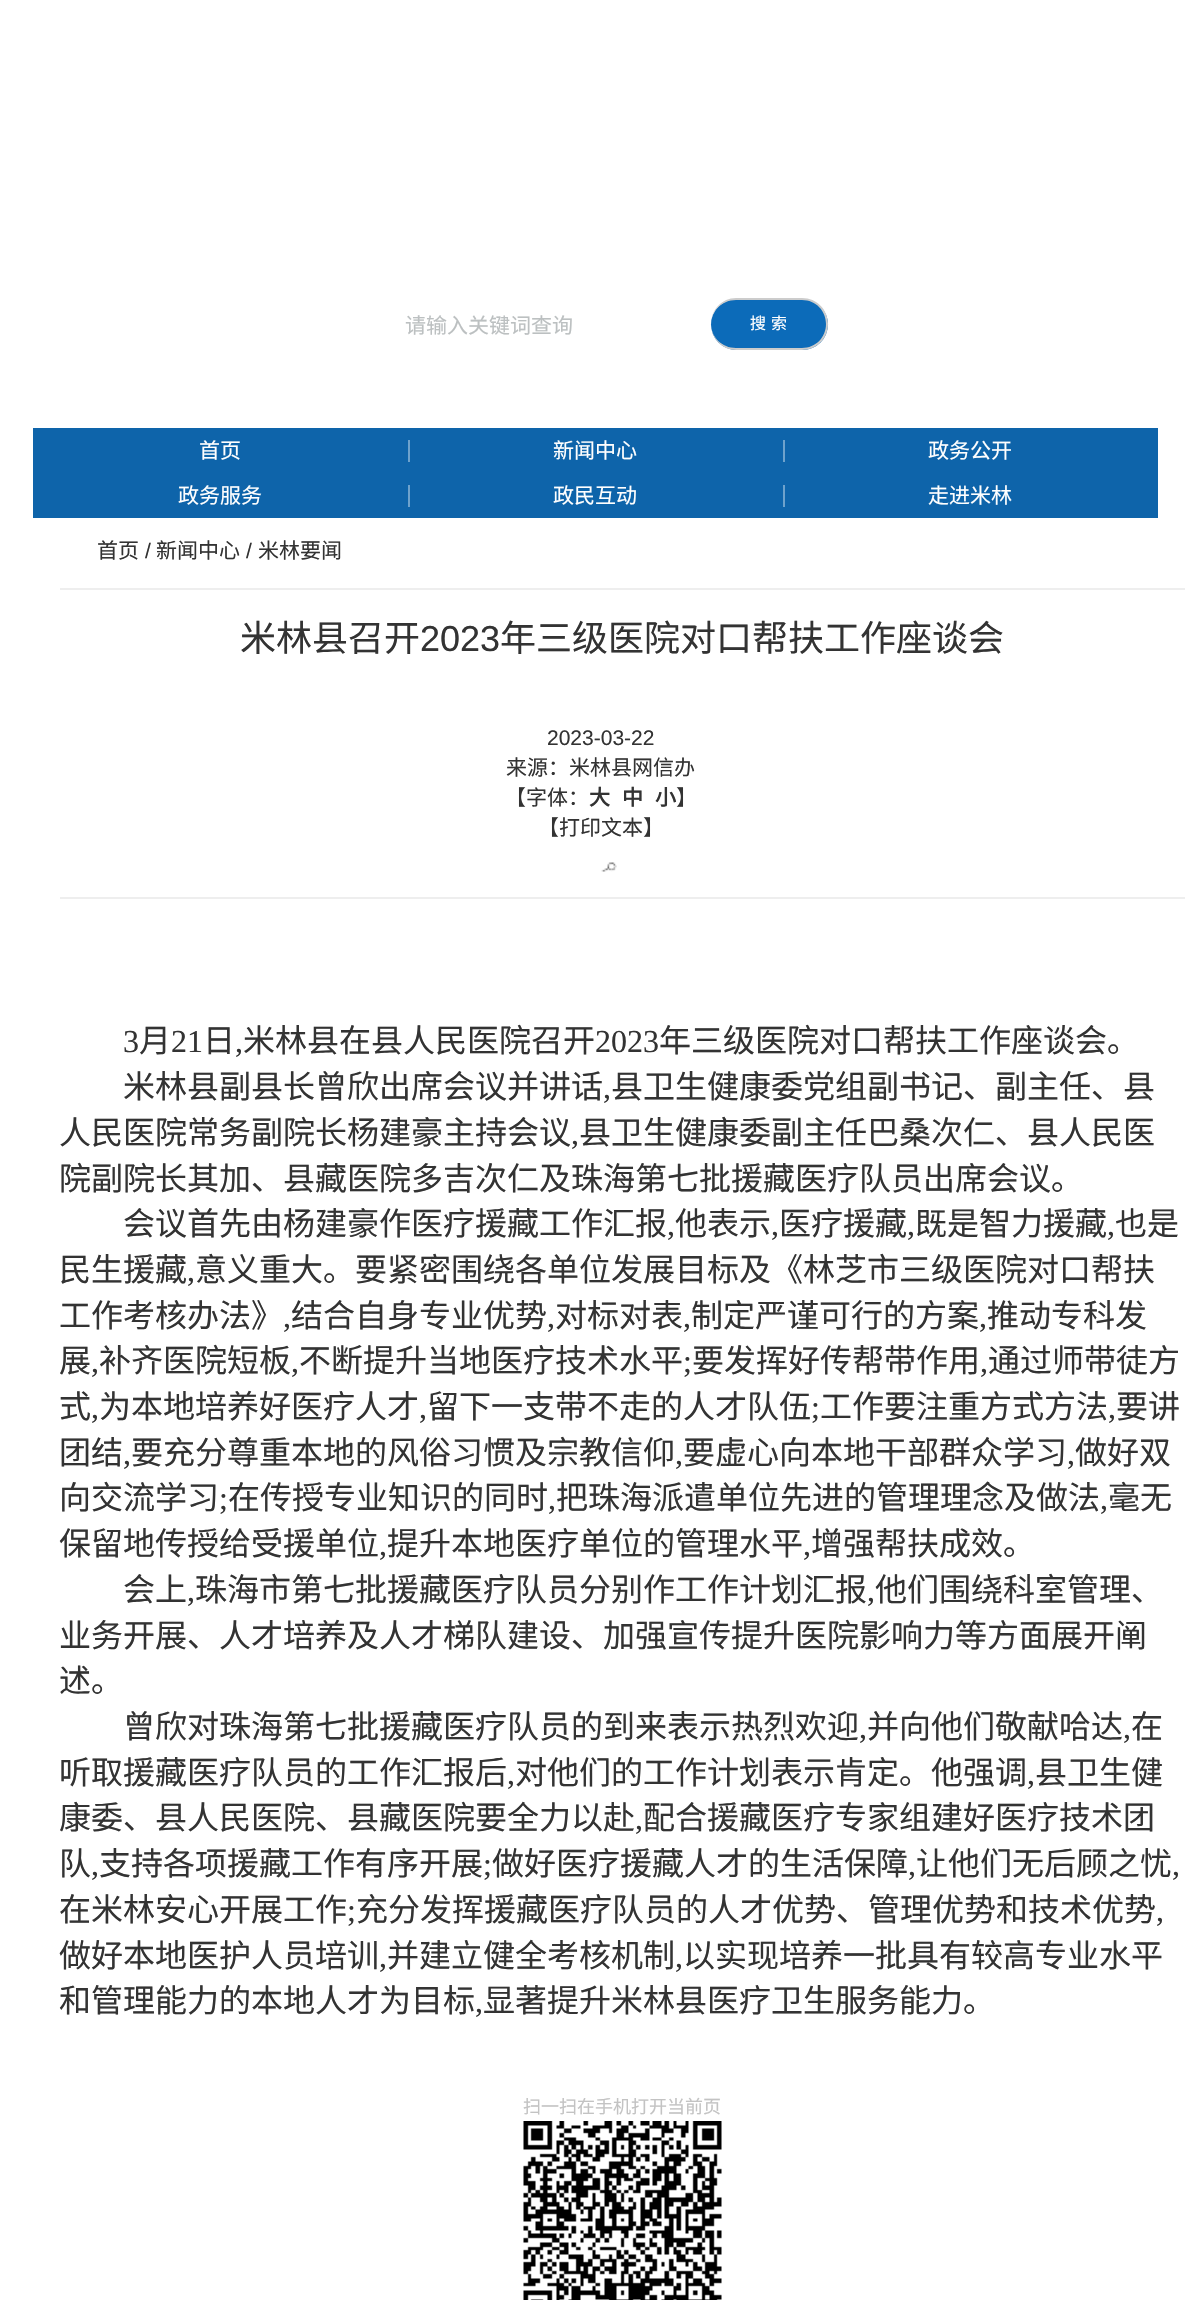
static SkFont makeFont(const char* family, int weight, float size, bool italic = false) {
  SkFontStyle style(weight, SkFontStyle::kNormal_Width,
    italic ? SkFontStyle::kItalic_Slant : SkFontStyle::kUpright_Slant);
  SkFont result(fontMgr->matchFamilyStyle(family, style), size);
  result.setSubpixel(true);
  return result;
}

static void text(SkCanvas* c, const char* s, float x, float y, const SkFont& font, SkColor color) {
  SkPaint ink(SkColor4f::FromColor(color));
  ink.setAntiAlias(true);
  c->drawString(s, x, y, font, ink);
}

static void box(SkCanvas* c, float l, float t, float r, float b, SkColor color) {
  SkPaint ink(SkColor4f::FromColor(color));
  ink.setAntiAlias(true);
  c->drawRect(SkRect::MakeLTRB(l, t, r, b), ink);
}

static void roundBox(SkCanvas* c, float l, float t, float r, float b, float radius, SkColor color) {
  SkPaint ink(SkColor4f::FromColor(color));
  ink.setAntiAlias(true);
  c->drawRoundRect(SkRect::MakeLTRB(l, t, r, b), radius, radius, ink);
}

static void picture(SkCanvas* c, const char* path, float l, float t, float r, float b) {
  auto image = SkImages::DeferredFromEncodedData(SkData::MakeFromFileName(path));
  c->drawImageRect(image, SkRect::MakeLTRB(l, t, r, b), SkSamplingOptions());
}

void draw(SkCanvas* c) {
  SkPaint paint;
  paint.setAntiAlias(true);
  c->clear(0xffffffff);
  SkFont face1 = makeFont("Noto Sans CJK SC", 400, 21);
  text(c, "请输入关键词查询", 405, 333, face1, 0xffbcc0c1);
  roundBox(c, 711, 299, 828, 350, 25.5f, 0xff0c6bb9);
  paint.setColor(0xffcccccc);
  c->drawPath(SkPathBuilder(SkPathFillType::kEvenOdd).moveTo(736, 298).lineTo(802, 298).cubicTo(817, 298, 828, 310, 828, 324).cubicTo(828, 338, 817, 350, 802, 350).lineTo(736, 350).cubicTo(722, 350, 711, 338, 711, 324).cubicTo(711, 310, 722, 298, 736, 298).close().moveTo(736, 300).lineTo(802, 300).cubicTo(816, 300, 826, 311, 826, 324).cubicTo(826, 337, 816, 348, 802, 348).lineTo(736, 348).cubicTo(722, 348, 711, 337, 711, 324).cubicTo(711, 311, 722, 300, 736, 300).close().detach(), paint);
  SkFont face2 = makeFont("Noto Sans CJK SC", 400, 16);
  text(c, "搜", 750, 329, face2, 0xffffffff);
  text(c, "索", 771, 329, face2, 0xffffffff);
  box(c, 33, 428, 1158, 518, 0xff0e64aa);
  text(c, "首页", 199, 458, face1, 0xffffffff);
  box(c, 408, 440, 410, 462, 0xff6ea2cc);
  text(c, "新闻中心", 553, 458, face1, 0xffffffff);
  box(c, 783, 440, 785, 462, 0xff6ea2cc);
  text(c, "政务公开", 928, 458, face1, 0xffffffff);
  text(c, "政务服务", 178, 503, face1, 0xffffffff);
  box(c, 408, 485, 410, 507, 0xff6ea2cc);
  text(c, "政民互动", 553, 503, face1, 0xffffffff);
  box(c, 783, 485, 785, 507, 0xff6ea2cc);
  text(c, "走进米林", 928, 503, face1, 0xffffffff);
  text(c, "首页", 97, 558, face1, 0xff333333);
  SkFont face3 = makeFont("Liberation Sans", 400, 21);
  text(c, "/", 145, 558, face3, 0xff333333);
  text(c, "新闻中心", 156, 558, face1, 0xff333333);
  text(c, "/", 246, 558, face3, 0xff333333);
  text(c, "米林要闻", 258, 558, face1, 0xff333333);
  box(c, 60, 588, 1185, 590, 0xffeeeeee);
  SkFont face4 = makeFont("Noto Sans CJK SC", 400, 36);
  text(c, "米林县召开", 240, 651, face4, 0xff333333);
  SkFont face5 = makeFont("Liberation Sans", 400, 36);
  text(c, "2023", 420, 651, face5, 0xff333333);
  text(c, "年三级医院对口帮扶工作座谈会", 500, 651, face4, 0xff333333);
  text(c, "2023-03-22", 547, 745, face3, 0xff333333);
  text(c, "来源：米林县网信办", 506, 775, face1, 0xff333333);
  text(c, "【字体：", 505, 805, face1, 0xff333333);
  SkFont face6 = makeFont("Noto Sans CJK SC", 700, 21);
  text(c, "大", 589, 805, face6, 0xff333333);
  text(c, "中", 622, 805, face6, 0xff333333);
  text(c, "小", 655, 805, face6, 0xff333333);
  text(c, "】", 676, 805, face1, 0xff333333);
  text(c, "【打印文本】", 538, 835, face1, 0xff333333);
  picture(c, "img_01.png", 601, 862, 617, 872);
  box(c, 60, 897, 1185, 899, 0xffeeeeee);
  SkFont face7 = makeFont("Liberation Serif", 400, 32);
  text(c, "3", 123, 1052, face7, 0xff333333);
  SkFont face8 = makeFont("Noto Sans CJK SC", 400, 32);
  text(c, "月", 139, 1052, face8, 0xff333333);
  text(c, "21", 171, 1052, face7, 0xff333333);
  text(c, "日", 203, 1052, face8, 0xff333333);
  text(c, ",", 235, 1052, face7, 0xff333333);
  text(c, "米林县在县人民医院召开", 243, 1052, face8, 0xff333333);
  text(c, "2023", 595, 1052, face7, 0xff333333);
  text(c, "年三级医院对口帮扶工作座谈会。", 659, 1052, face8, 0xff333333);
  text(c, "米林县副县长曾欣出席会议并讲话", 123, 1098, face8, 0xff333333);
  text(c, ",", 603, 1098, face7, 0xff333333);
  text(c, "县卫生健康委党组副书记、副主任、县", 611, 1098, face8, 0xff333333);
  text(c, "人民医院常务副院长杨建豪主持会议", 59, 1144, face8, 0xff333333);
  text(c, ",", 571, 1144, face7, 0xff333333);
  text(c, "县卫生健康委副主任巴桑次仁、县人民医", 579, 1144, face8, 0xff333333);
  text(c, "院副院长其加、县藏医院多吉次仁及珠海第七批援藏医疗队员出席会议。", 59, 1190, face8, 0xff333333);
  text(c, "会议首先由杨建豪作医疗援藏工作汇报", 123, 1235, face8, 0xff333333);
  text(c, ",", 667, 1235, face7, 0xff333333);
  text(c, "他表示", 675, 1235, face8, 0xff333333);
  text(c, ",", 771, 1235, face7, 0xff333333);
  text(c, "医疗援藏", 779, 1235, face8, 0xff333333);
  text(c, ",", 907, 1235, face7, 0xff333333);
  text(c, "既是智力援藏", 915, 1235, face8, 0xff333333);
  text(c, ",", 1107, 1235, face7, 0xff333333);
  text(c, "也是", 1115, 1235, face8, 0xff333333);
  text(c, "民生援藏", 59, 1281, face8, 0xff333333);
  text(c, ",", 187, 1281, face7, 0xff333333);
  text(c, "意义重大。要紧密围绕各单位发展目标及《林芝市三级医院对口帮扶", 195, 1281, face8, 0xff333333);
  text(c, "工作考核办法》", 59, 1327, face8, 0xff333333);
  text(c, ",", 283, 1327, face7, 0xff333333);
  text(c, "结合自身专业优势", 291, 1327, face8, 0xff333333);
  text(c, ",", 547, 1327, face7, 0xff333333);
  text(c, "对标对表", 555, 1327, face8, 0xff333333);
  text(c, ",", 683, 1327, face7, 0xff333333);
  text(c, "制定严谨可行的方案", 691, 1327, face8, 0xff333333);
  text(c, ",", 979, 1327, face7, 0xff333333);
  text(c, "推动专科发", 987, 1327, face8, 0xff333333);
  text(c, "展", 59, 1372, face8, 0xff333333);
  text(c, ",", 91, 1372, face7, 0xff333333);
  text(c, "补齐医院短板", 99, 1372, face8, 0xff333333);
  text(c, ",", 291, 1372, face7, 0xff333333);
  text(c, "不断提升当地医疗技术水平", 299, 1372, face8, 0xff333333);
  text(c, ";", 683, 1372, face7, 0xff333333);
  text(c, "要发挥好传帮带作用", 692, 1372, face8, 0xff333333);
  text(c, ",", 980, 1372, face7, 0xff333333);
  text(c, "通过师带徒方", 988, 1372, face8, 0xff333333);
  text(c, "式", 59, 1418, face8, 0xff333333);
  text(c, ",", 91, 1418, face7, 0xff333333);
  text(c, "为本地培养好医疗人才", 99, 1418, face8, 0xff333333);
  text(c, ",", 419, 1418, face7, 0xff333333);
  text(c, "留下一支带不走的人才队伍", 427, 1418, face8, 0xff333333);
  text(c, ";", 811, 1418, face7, 0xff333333);
  text(c, "工作要注重方式方法", 820, 1418, face8, 0xff333333);
  text(c, ",", 1108, 1418, face7, 0xff333333);
  text(c, "要讲", 1116, 1418, face8, 0xff333333);
  text(c, "团结", 59, 1464, face8, 0xff333333);
  text(c, ",", 123, 1464, face7, 0xff333333);
  text(c, "要充分尊重本地的风俗习惯及宗教信仰", 131, 1464, face8, 0xff333333);
  text(c, ",", 675, 1464, face7, 0xff333333);
  text(c, "要虚心向本地干部群众学习", 683, 1464, face8, 0xff333333);
  text(c, ",", 1067, 1464, face7, 0xff333333);
  text(c, "做好双", 1075, 1464, face8, 0xff333333);
  text(c, "向交流学习", 59, 1509, face8, 0xff333333);
  text(c, ";", 219, 1509, face7, 0xff333333);
  text(c, "在传授专业知识的同时", 228, 1509, face8, 0xff333333);
  text(c, ",", 548, 1509, face7, 0xff333333);
  text(c, "把珠海派遣单位先进的管理理念及做法", 556, 1509, face8, 0xff333333);
  text(c, ",", 1100, 1509, face7, 0xff333333);
  text(c, "毫无", 1108, 1509, face8, 0xff333333);
  text(c, "保留地传授给受援单位", 59, 1555, face8, 0xff333333);
  text(c, ",", 379, 1555, face7, 0xff333333);
  text(c, "提升本地医疗单位的管理水平", 387, 1555, face8, 0xff333333);
  text(c, ",", 803, 1555, face7, 0xff333333);
  text(c, "增强帮扶成效。", 811, 1555, face8, 0xff333333);
  text(c, "会上", 123, 1601, face8, 0xff333333);
  text(c, ",", 187, 1601, face7, 0xff333333);
  text(c, "珠海市第七批援藏医疗队员分别作工作计划汇报", 195, 1601, face8, 0xff333333);
  text(c, ",", 867, 1601, face7, 0xff333333);
  text(c, "他们围绕科室管理、", 875, 1601, face8, 0xff333333);
  text(c, "业务开展、人才培养及人才梯队建设、加强宣传提升医院影响力等方面展开阐", 59, 1647, face8, 0xff333333);
  text(c, "述。", 59, 1692, face8, 0xff333333);
  text(c, "曾欣对珠海第七批援藏医疗队员的到来表示热烈欢迎", 123, 1738, face8, 0xff333333);
  text(c, ",", 859, 1738, face7, 0xff333333);
  text(c, "并向他们敬献哈达", 867, 1738, face8, 0xff333333);
  text(c, ",", 1123, 1738, face7, 0xff333333);
  text(c, "在", 1131, 1738, face8, 0xff333333);
  text(c, "听取援藏医疗队员的工作汇报后", 59, 1784, face8, 0xff333333);
  text(c, ",", 507, 1784, face7, 0xff333333);
  text(c, "对他们的工作计划表示肯定。他强调", 515, 1784, face8, 0xff333333);
  text(c, ",", 1027, 1784, face7, 0xff333333);
  text(c, "县卫生健", 1035, 1784, face8, 0xff333333);
  text(c, "康委、县人民医院、县藏医院要全力以赴", 59, 1829, face8, 0xff333333);
  text(c, ",", 635, 1829, face7, 0xff333333);
  text(c, "配合援藏医疗专家组建好医疗技术团", 643, 1829, face8, 0xff333333);
  text(c, "队", 59, 1875, face8, 0xff333333);
  text(c, ",", 91, 1875, face7, 0xff333333);
  text(c, "支持各项援藏工作有序开展", 99, 1875, face8, 0xff333333);
  text(c, ";", 483, 1875, face7, 0xff333333);
  text(c, "做好医疗援藏人才的生活保障", 492, 1875, face8, 0xff333333);
  text(c, ",", 908, 1875, face7, 0xff333333);
  text(c, "让他们无后顾之忧", 916, 1875, face8, 0xff333333);
  text(c, ",", 1172, 1875, face7, 0xff333333);
  text(c, "在米林安心开展工作", 59, 1921, face8, 0xff333333);
  text(c, ";", 347, 1921, face7, 0xff333333);
  text(c, "充分发挥援藏医疗队员的人才优势、管理优势和技术优势", 356, 1921, face8, 0xff333333);
  text(c, ",", 1156, 1921, face7, 0xff333333);
  text(c, "做好本地医护人员培训", 59, 1967, face8, 0xff333333);
  text(c, ",", 379, 1967, face7, 0xff333333);
  text(c, "并建立健全考核机制", 387, 1967, face8, 0xff333333);
  text(c, ",", 675, 1967, face7, 0xff333333);
  text(c, "以实现培养一批具有较高专业水平", 683, 1967, face8, 0xff333333);
  text(c, "和管理能力的本地人才为目标", 59, 2012, face8, 0xff333333);
  text(c, ",", 475, 2012, face7, 0xff333333);
  text(c, "显著提升米林县医疗卫生服务能力。", 483, 2012, face8, 0xff333333);
  SkFont face9 = makeFont("Noto Sans CJK SC", 400, 18);
  text(c, "扫一扫在手机打开当前页", 523, 2113, face9, 0xffc3c3c3);
  picture(c, "img_02.png", 523, 2121, 722, 2300);
}
